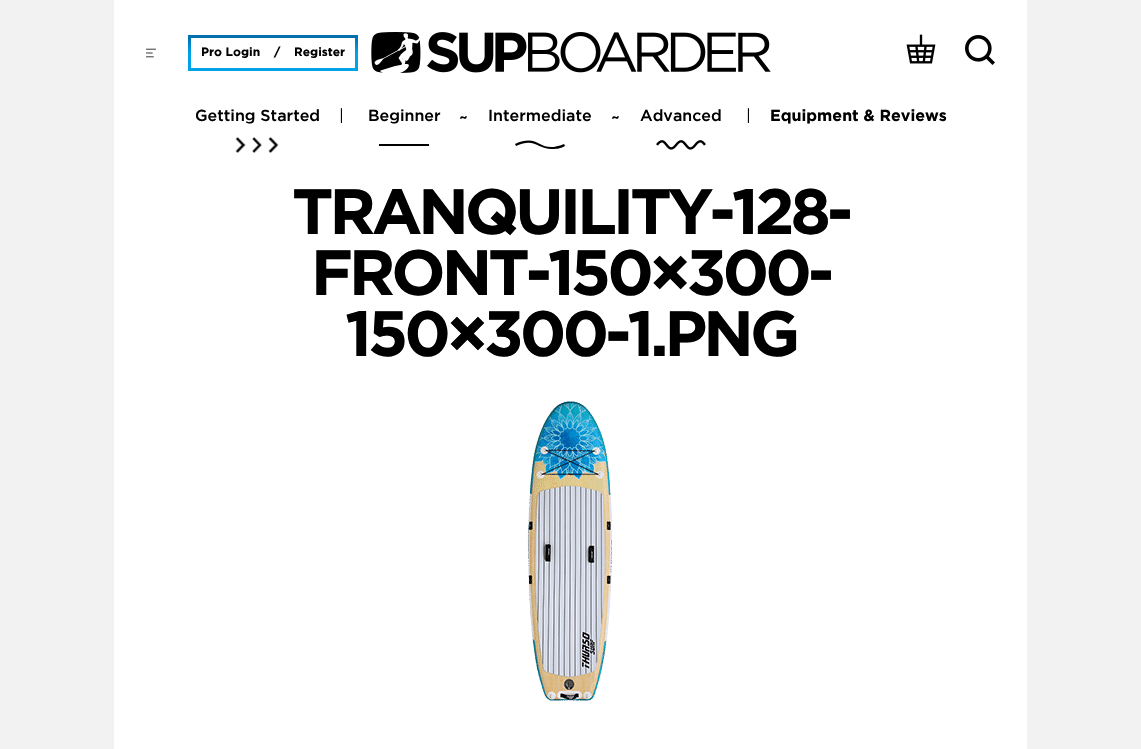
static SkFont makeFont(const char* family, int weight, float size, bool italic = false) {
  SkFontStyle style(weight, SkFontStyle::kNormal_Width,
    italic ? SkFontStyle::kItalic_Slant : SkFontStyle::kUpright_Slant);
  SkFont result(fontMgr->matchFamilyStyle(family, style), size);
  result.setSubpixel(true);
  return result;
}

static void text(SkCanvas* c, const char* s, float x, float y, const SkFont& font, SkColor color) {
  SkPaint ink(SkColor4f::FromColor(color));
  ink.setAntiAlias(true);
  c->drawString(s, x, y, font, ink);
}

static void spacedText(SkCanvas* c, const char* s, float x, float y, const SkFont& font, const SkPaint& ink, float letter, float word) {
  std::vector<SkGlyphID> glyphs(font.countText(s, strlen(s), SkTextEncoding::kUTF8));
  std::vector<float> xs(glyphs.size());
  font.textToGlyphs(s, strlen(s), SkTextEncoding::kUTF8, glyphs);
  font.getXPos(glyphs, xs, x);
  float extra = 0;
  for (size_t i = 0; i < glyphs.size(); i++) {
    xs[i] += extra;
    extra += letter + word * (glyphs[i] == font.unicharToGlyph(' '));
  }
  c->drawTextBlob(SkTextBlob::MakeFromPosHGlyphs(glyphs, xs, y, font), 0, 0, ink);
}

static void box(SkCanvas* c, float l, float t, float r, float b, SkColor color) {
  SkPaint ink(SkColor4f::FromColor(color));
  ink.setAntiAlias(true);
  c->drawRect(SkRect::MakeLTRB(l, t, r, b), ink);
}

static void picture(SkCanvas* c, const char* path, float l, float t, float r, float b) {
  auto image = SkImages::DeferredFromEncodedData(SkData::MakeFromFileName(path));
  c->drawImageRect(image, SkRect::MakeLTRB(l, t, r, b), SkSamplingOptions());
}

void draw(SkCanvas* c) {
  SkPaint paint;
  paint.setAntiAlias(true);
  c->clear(0xfff2f2f2);
  box(c, 114, 0, 1027, 749, 0xffffffff);
  picture(c, "img_01.png", 146, 48, 156, 58);
  picture(c, "img_02.png", 188, 35, 358, 71);
  SkFont face1 = makeFont("Gotham", 700, 12);
  text(c, "Pro Login", 201, 56, face1, 0xff000000);
  text(c, "/", 274, 56, face1, 0xff000000);
  text(c, "Register", 294, 56, face1, 0xff000000);
  picture(c, "img_03.png", 371, 32, 771, 73);
  picture(c, "img_04.png", 906, 34, 936, 64);
  picture(c, "img_05.png", 965, 35, 995, 65);
  SkFont face2 = makeFont("Gotham", 500, 16);
  text(c, "Getting Started", 195, 121, face2, 0xff000000);
  picture(c, "img_06.png", 235, 137, 279, 153);
  SkFont face3 = makeFont("Gotham", 400, 16);
  text(c, "|", 339, 121, face3, 0xff000000);
  text(c, "Beginner", 368, 121, face2, 0xff000000);
  box(c, 379, 144, 429, 146, 0xff000000);
  SkFont face4 = makeFont("Gotham", 500, 18);
  text(c, "~", 459, 123, face4, 0xff000000);
  text(c, "Intermediate", 488, 121, face2, 0xff000000);
  paint.setColor(0xff000000);
  c->drawPath(SkPathBuilder().moveTo(552, 149).cubicTo(537, 149, 535, 137, 516, 146).lineTo(515, 144).cubicTo(528, 138, 534, 141, 540, 144).cubicTo(546, 147, 552, 149, 564, 144).lineTo(565, 146).cubicTo(560, 149, 555, 149, 552, 149).close().detach(), paint);
  text(c, "~", 611, 123, face4, 0xff000000);
  text(c, "Advanced", 640, 121, face2, 0xff000000);
  picture(c, "img_07.png", 656, 140, 706, 150);
  text(c, "|", 746, 121, face3, 0xff000000);
  SkFont face5 = makeFont("Gotham", 700, 16);
  text(c, "Equipment & Reviews", 770, 121, face5, 0xff000000);
  SkFont face6 = makeFont("Gotham", 700, 64);
  spacedText(c, "TRANQUILITY-128-", 292, 234, face6, paint, -4, 0);
  spacedText(c, "FRONT-150×300-", 311, 295, face6, paint, -4, 0);
  spacedText(c, "150×300-1.PNG", 345, 356, face6, paint, -4, 0);
  picture(c, "img_08.png", 527, 401, 613, 701);
}
